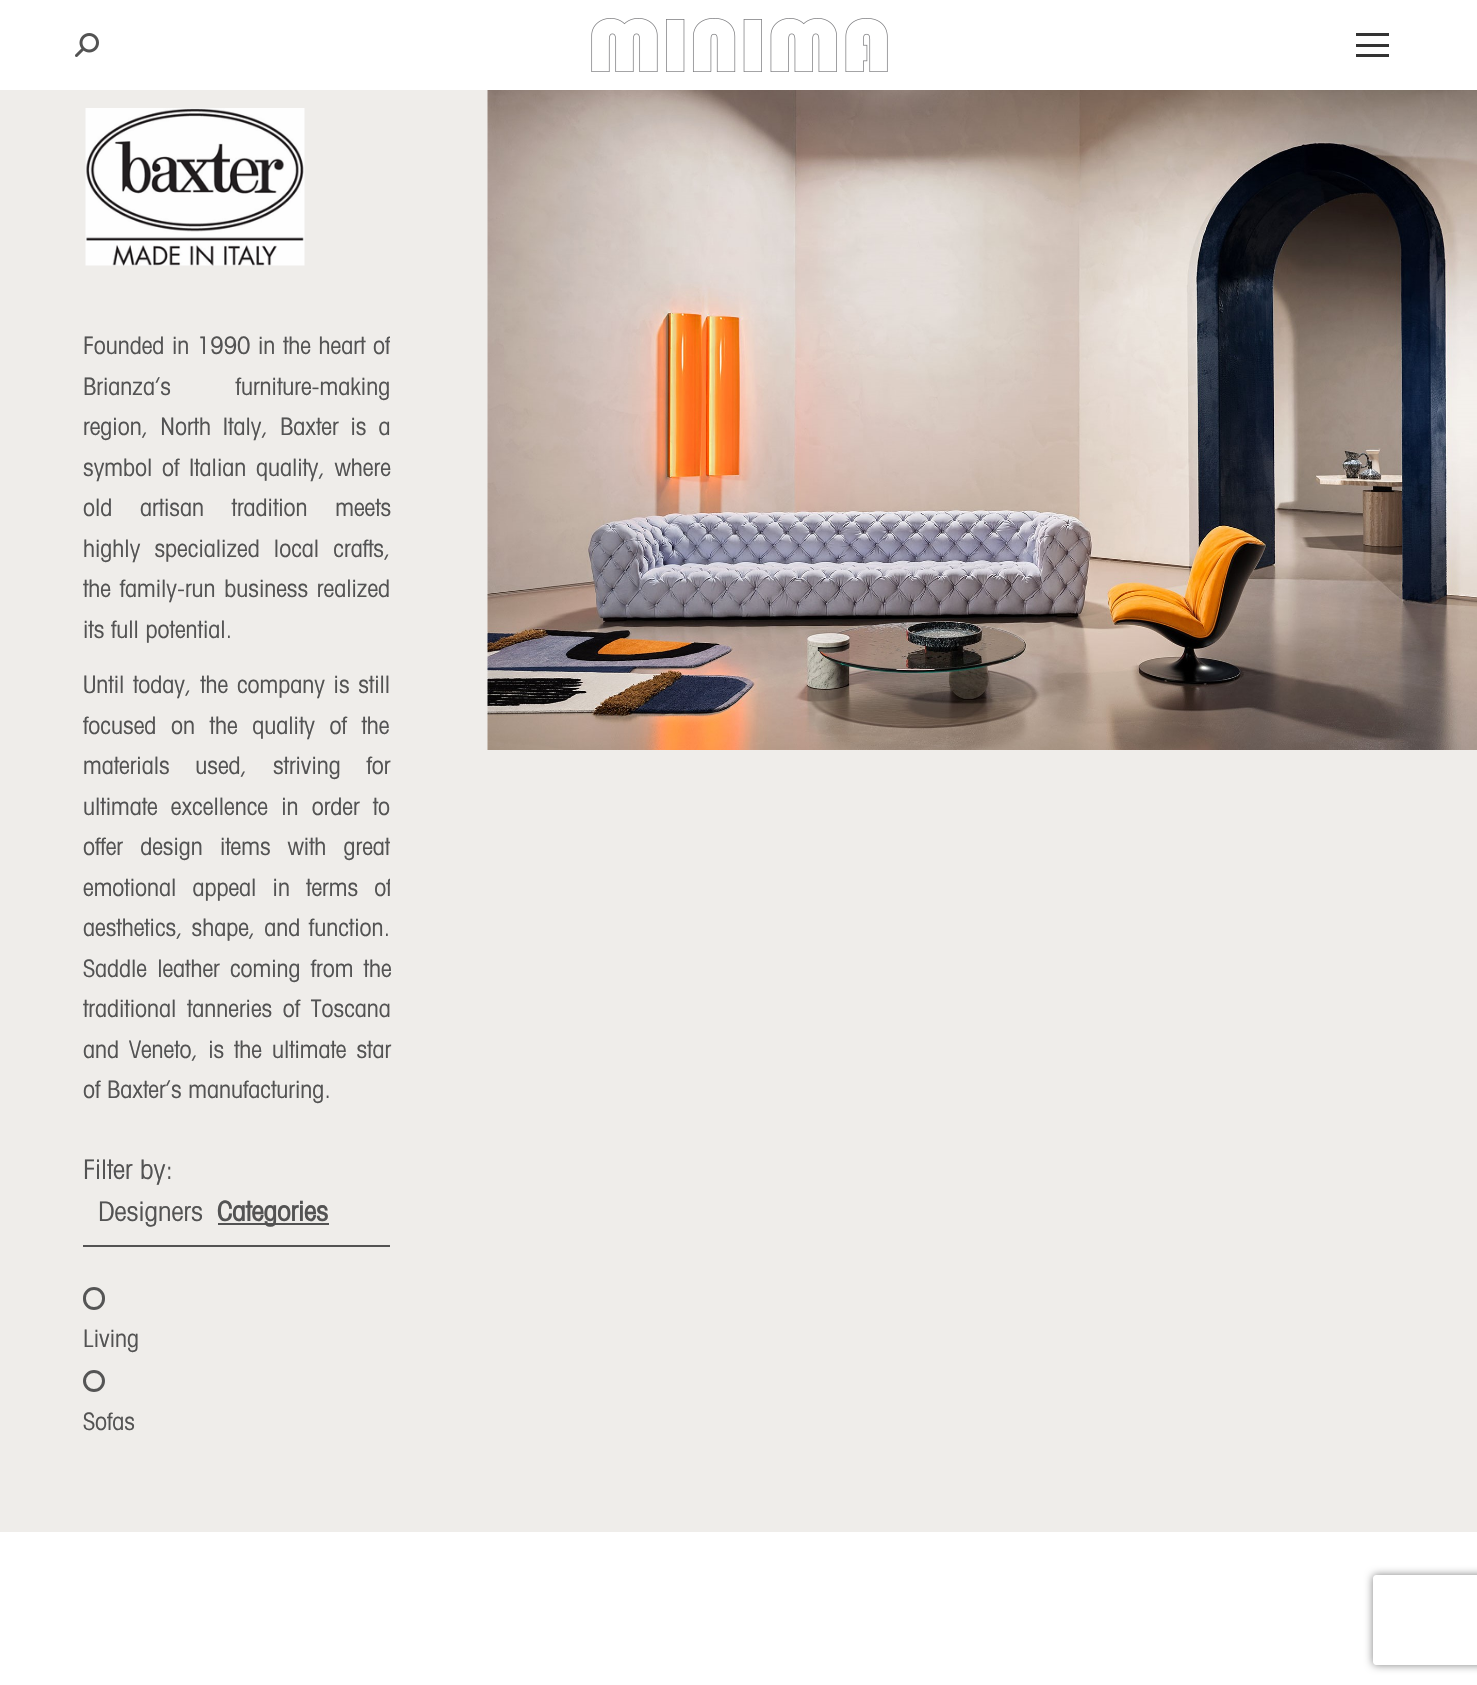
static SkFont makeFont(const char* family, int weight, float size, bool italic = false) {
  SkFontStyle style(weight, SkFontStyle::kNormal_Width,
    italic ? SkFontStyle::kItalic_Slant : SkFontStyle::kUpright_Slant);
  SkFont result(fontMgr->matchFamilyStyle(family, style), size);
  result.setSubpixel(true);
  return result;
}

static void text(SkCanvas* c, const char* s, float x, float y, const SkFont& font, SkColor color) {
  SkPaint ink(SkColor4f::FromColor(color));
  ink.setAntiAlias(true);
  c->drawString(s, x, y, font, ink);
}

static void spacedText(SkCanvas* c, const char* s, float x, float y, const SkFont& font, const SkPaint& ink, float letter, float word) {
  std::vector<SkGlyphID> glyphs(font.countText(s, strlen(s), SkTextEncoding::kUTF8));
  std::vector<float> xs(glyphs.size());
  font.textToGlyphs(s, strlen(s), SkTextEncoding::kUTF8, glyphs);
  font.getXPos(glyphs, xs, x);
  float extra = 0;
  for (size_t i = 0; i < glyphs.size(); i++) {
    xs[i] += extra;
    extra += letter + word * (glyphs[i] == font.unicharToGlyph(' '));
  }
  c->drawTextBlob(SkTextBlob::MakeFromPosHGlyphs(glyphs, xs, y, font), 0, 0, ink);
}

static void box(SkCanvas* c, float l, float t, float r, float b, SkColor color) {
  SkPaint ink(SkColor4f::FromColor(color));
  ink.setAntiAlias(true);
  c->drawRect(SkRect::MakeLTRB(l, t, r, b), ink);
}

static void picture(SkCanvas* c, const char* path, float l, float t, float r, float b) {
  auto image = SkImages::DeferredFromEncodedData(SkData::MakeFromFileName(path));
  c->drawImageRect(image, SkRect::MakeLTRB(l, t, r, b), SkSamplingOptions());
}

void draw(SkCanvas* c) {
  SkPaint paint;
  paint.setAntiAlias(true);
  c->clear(0xffffffff);
  picture(c, "img_01.png", 75, 33, 99, 57);
  picture(c, "img_02.png", 591, 18, 888, 72);
  box(c, 1356, 33, 1389, 36, 0xff333333);
  box(c, 1356, 44, 1389, 47, 0xff333333);
  box(c, 1356, 54, 1389, 57, 0xff333333);
  box(c, 0, 90, 1477, 1532, 0xffefedea);
  picture(c, "img_03.png", 85, 108, 305, 266);
  c->save();
  c->clipRect(SkRect::MakeLTRB(83, 105, 390, 1125));
  SkFont face1 = makeFont("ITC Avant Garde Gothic", 400, 24);
  paint.setColor(0xff535353);
  spacedText(c, "Founded in 1990 in the heart of", 83, 354, face1, paint, 0, 1);
  c->restore();
  spacedText(c, "Brianza’s furniture-making", 83, 395, face1, paint, 0, 58);
  spacedText(c, "region, North Italy, Baxter is a", 83, 435, face1, paint, 0, 5.25f);
  spacedText(c, "symbol of Italian quality, where", 83, 476, face1, paint, 0, 3);
  spacedText(c, "old artisan tradition meets", 83, 516, face1, paint, 0, 21);
  spacedText(c, "highly specialized local crafts,", 83, 557, face1, paint, 0, 7.5f);
  c->save();
  c->clipRect(SkRect::MakeLTRB(83, 105, 390, 1125));
  spacedText(c, "the family-run business realized", 83, 597, face1, paint, 0, 2);
  c->restore();
  text(c, "its full potential.", 83, 638, face1, 0xff535353);
  spacedText(c, "Until today, the company is still", 83, 693, face1, paint, 0, 2);
  c->save();
  c->clipRect(SkRect::MakeLTRB(83, 105, 390, 1125));
  spacedText(c, "focused on the quality of the", 83, 734, face1, paint, 0, 8);
  c->restore();
  spacedText(c, "materials used, striving for", 83, 774, face1, paint, 0, 19);
  spacedText(c, "ultimate excellence in order to", 83, 815, face1, paint, 0, 6.5f);
  c->save();
  c->clipRect(SkRect::MakeLTRB(83, 105, 390, 1125));
  spacedText(c, "offer design items with great", 83, 855, face1, paint, 0, 10.5f);
  spacedText(c, "emotional appeal in terms of", 83, 896, face1, paint, 0, 9.5f);
  c->restore();
  spacedText(c, "aesthetics, shape, and function.", 83, 936, face1, paint, 0, 2);
  spacedText(c, "Saddle leather coming from the", 83, 977, face1, paint, 0, 3.5f);
  c->save();
  c->clipRect(SkRect::MakeLTRB(83, 105, 390, 1125));
  spacedText(c, "traditional tanneries of Toscana", 83, 1017, face1, paint, 0, 4);
  c->restore();
  spacedText(c, "and Veneto, is the ultimate star", 83, 1058, face1, paint, 0, 3.25f);
  text(c, "of Baxter’s manufacturing.", 83, 1098, face1, 0xff535353);
  box(c, 83, 1245, 390, 1247, 0xff535353);
  SkFont face2 = makeFont("ITC Avant Garde Gothic", 400, 27);
  text(c, "Filter by:", 83, 1179, face2, 0xff535353);
  text(c, "Designers", 98, 1221, face2, 0xff535353);
  box(c, 218, 1223, 329, 1225, 0xff535353);
  SkFont face3 = makeFont("ITC Avant Garde Gothic", 700, 27);
  text(c, "Categories", 217, 1221, face3, 0xff535353);
  paint.setStyle(SkPaint::kStroke_Style);
  paint.setStrokeWidth(3);
  paint.setColor(0xff555555);
  c->drawRoundRect(SkRect::MakeLTRB(84.5f, 1288.5f, 103.5f, 1308.5f), 9.5f, 9.5f, paint);
  text(c, "Living", 83, 1347, face1, 0xff535353);
  c->drawCircle(94, 1381, 9.5f, paint);
  text(c, "Sofas", 83, 1430, face1, 0xff535353);
  picture(c, "img_04.png", 487, 90, 1477, 750);
  c->save();
  c->clipPath(SkPathBuilder(SkPathFillType::kEvenOdd).moveTo(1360, 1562).lineTo(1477, 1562).lineTo(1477, 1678).lineTo(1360, 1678).close().moveTo(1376, 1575).lineTo(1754, 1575).cubicTo(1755.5f, 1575, 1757, 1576.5f, 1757, 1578).lineTo(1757, 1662).cubicTo(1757, 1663.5f, 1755.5f, 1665, 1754, 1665).lineTo(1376, 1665).cubicTo(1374.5f, 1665, 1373, 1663.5f, 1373, 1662).lineTo(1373, 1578).cubicTo(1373, 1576.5f, 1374.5f, 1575, 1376, 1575).close().detach(), true);
  paint.setStyle(SkPaint::kFill_Style);
  paint.setColor(0xff808080);
  paint.setMaskFilter(SkMaskFilter::MakeBlur(kNormal_SkBlurStyle, 4));
  c->drawRoundRect(SkRect::MakeLTRB(1373, 1575, 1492, 1665), 3, 3, paint);
  paint.setMaskFilter(nullptr);
  c->restore();
}
